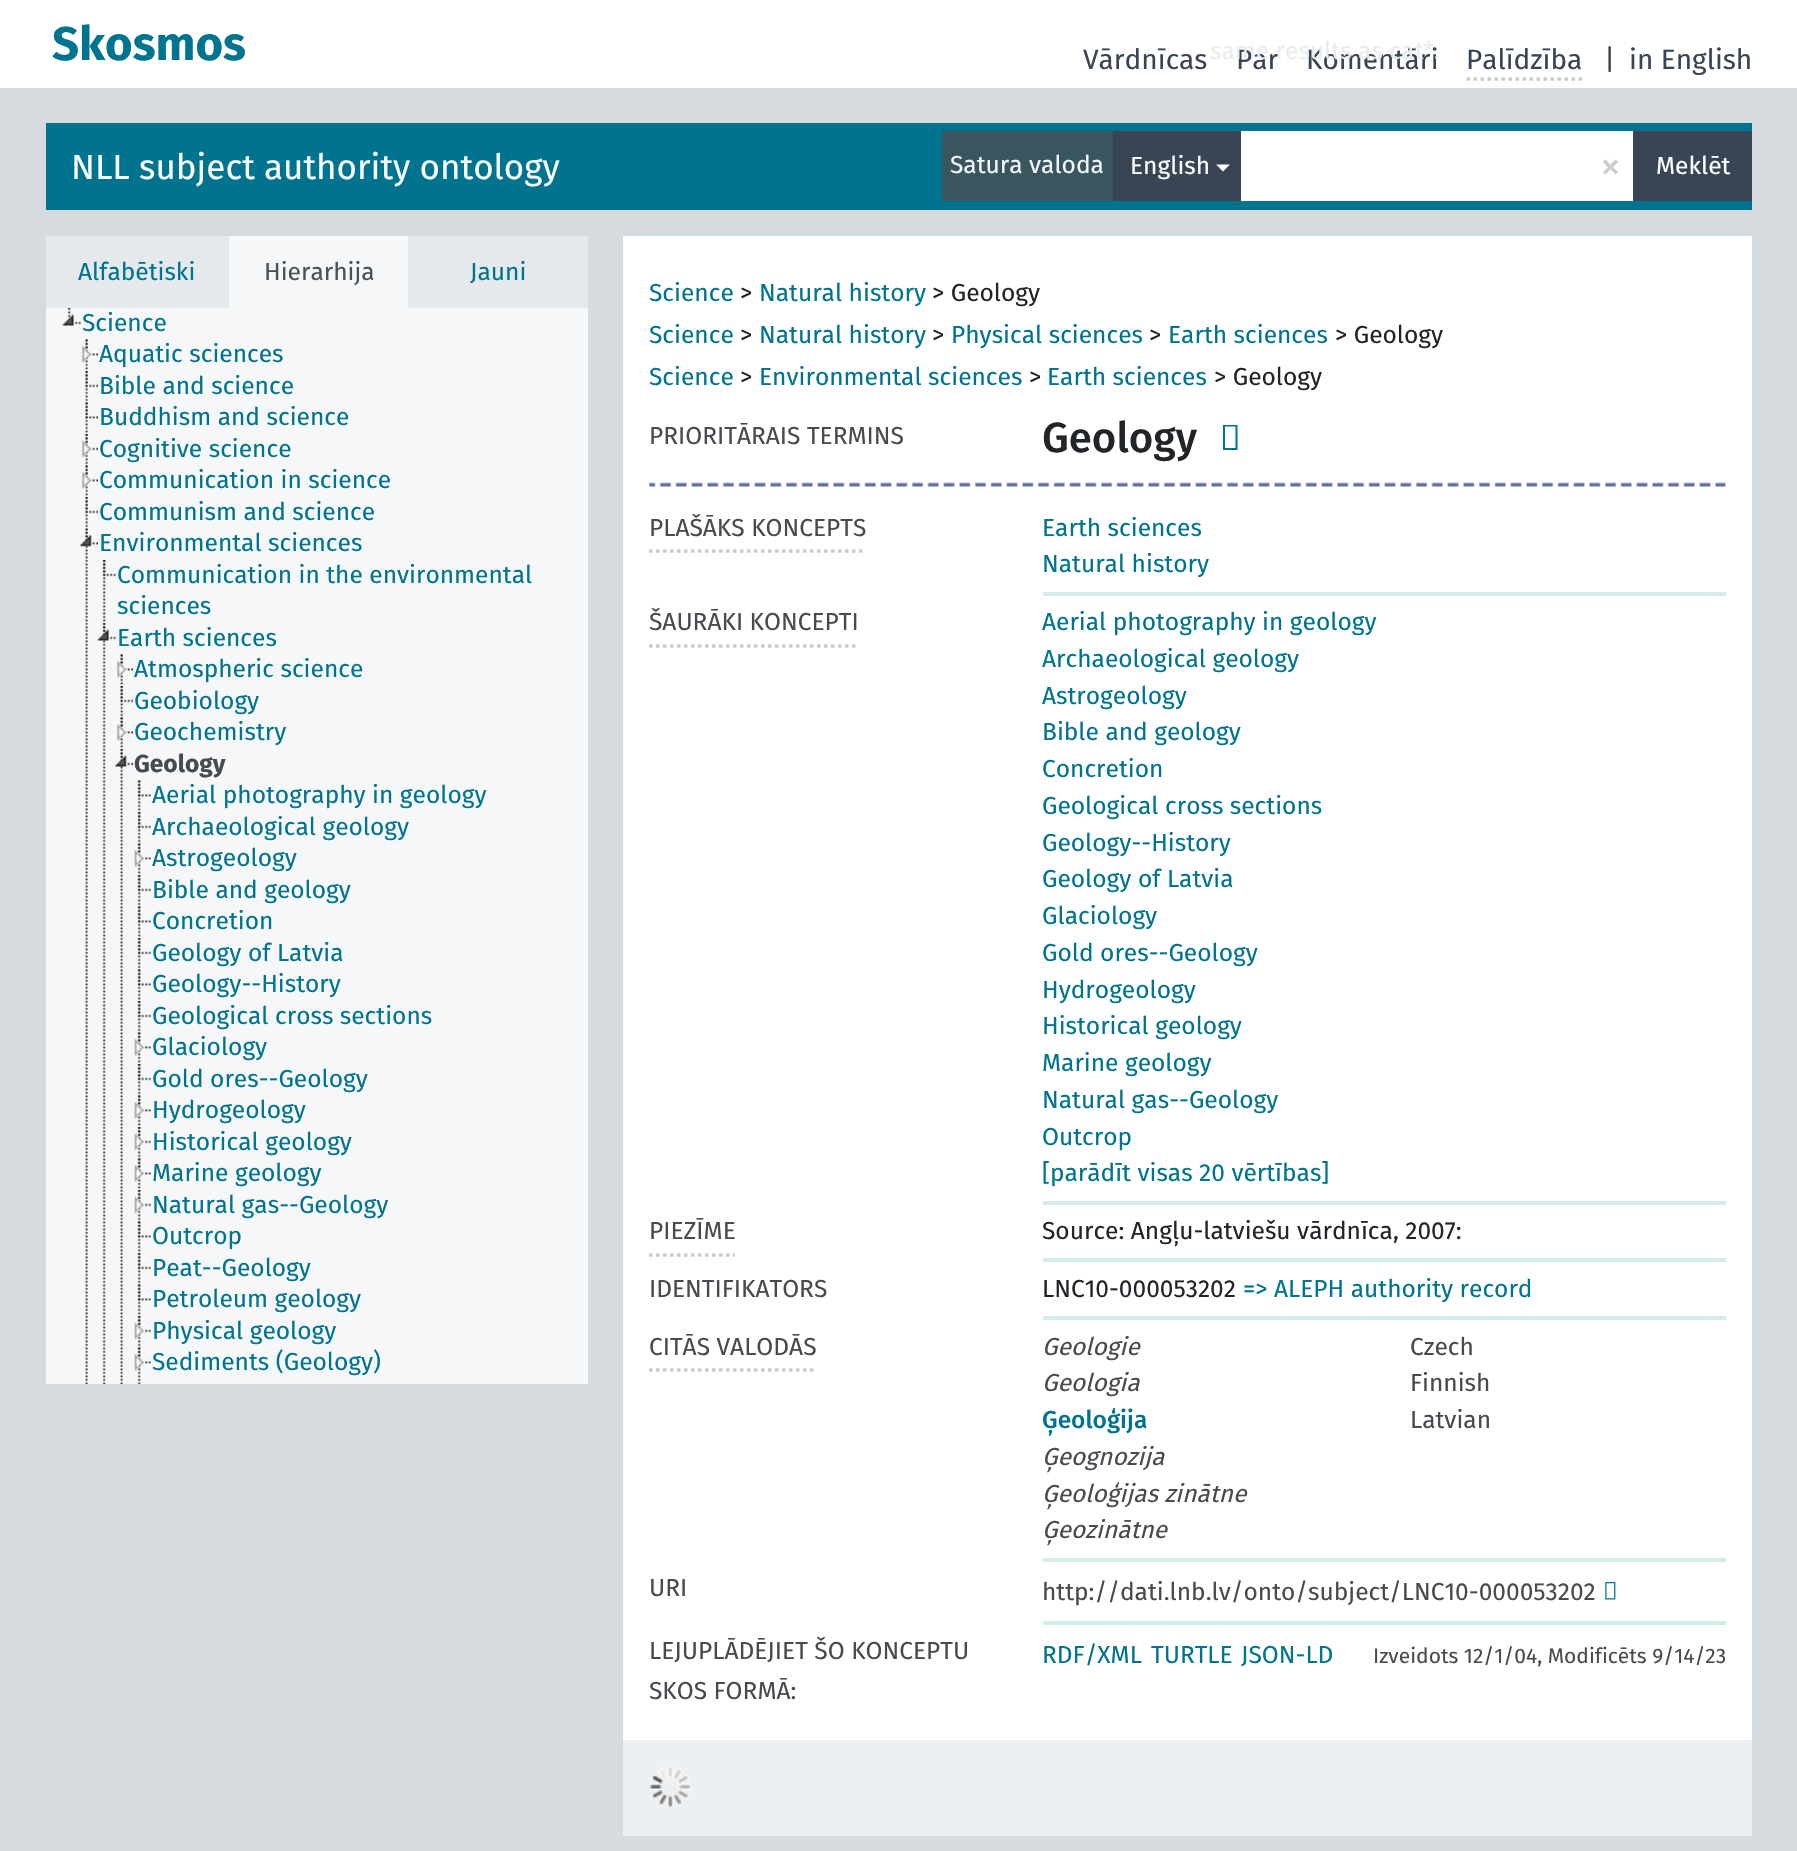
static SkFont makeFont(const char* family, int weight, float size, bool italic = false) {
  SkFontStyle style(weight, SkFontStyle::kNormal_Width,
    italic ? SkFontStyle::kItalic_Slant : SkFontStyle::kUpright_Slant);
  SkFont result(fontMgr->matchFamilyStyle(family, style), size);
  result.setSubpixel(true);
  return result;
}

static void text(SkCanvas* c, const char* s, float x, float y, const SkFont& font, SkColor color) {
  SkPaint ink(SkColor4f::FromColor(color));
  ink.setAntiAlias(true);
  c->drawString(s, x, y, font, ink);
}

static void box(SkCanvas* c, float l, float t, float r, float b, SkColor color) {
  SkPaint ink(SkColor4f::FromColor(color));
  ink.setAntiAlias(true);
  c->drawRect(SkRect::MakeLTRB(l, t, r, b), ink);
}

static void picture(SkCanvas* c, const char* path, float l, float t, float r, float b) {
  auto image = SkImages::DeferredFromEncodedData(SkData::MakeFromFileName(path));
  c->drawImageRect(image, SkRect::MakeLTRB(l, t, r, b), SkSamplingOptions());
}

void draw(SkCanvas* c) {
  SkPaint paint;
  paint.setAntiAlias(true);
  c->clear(0xffd5dbde);
  box(c, 0, 0, 1797, 88, 0xffffffff);
  SkFont face1 = makeFont("Fira Sans", 700, 47.25f);
  text(c, "Skosmos", 52, 60, face1, 0xff00748f);
  SkFont face2 = makeFont("Fira Sans", 400, 28);
  text(c, "Par", 1236, 69, face2, 0xff394554);
  text(c, "Komentāri", 1306, 69, face2, 0xff394554);
  SkFont face3 = makeFont("Fira Sans", 400, 24.5f);
  text(c, "same results as cat*.", 1210, 59, face3, 0xffebecee);
  text(c, "Palīdzība", 1466, 69, face2, 0xff394554);
  paint.setStyle(SkPaint::kStroke_Style);
  paint.setStrokeWidth(3.5f);
  paint.setColor(0xffcccccc);
  paint.setPathEffect(SkDashPathEffect::Make({{3.5f, 3.5f}}, 0));
  c->drawPath(SkPathBuilder().moveTo(1466.5f, 79).lineTo(1582, 79).detach(), paint);
  paint.setPathEffect(nullptr);
  text(c, "Vārdnīcas", 1083, 69, face2, 0xff394554);
  text(c, "|", 1604, 69, face2, 0xff394554);
  text(c, "in English", 1629, 69, face2, 0xff394554);
  box(c, 46, 123, 1752, 210, 0xff00748f);
  SkFont face4 = makeFont("Fira Sans", 400, 35);
  text(c, "NLL subject authority ontology", 71, 179, face4, 0xfffcfefe);
  box(c, 942, 131, 1113, 201, 0xff39555e);
  text(c, "Satura valoda", 950, 173, face3, 0xfff2f8f9);
  box(c, 1113, 131, 1241, 201, 0xff394554);
  text(c, "English", 1130, 174, face3, 0xfffcfefe);
  paint.setStyle(SkPaint::kFill_Style);
  paint.setColor(0xffffffff);
  c->drawPath(SkPathBuilder().moveTo(1216, 164.5f).lineTo(1230, 164.5f).lineTo(1223, 171.5f).close().detach(), paint);
  box(c, 1241, 131, 1633, 201, 0xffffffff);
  SkFont face5 = makeFont("Fira Sans", 400, 42);
  text(c, "×", 1600, 180, face5, 0xffcccccc);
  box(c, 1633, 131, 1752, 201, 0xff394554);
  text(c, "Meklēt", 1656, 174, face3, 0xfffcfefe);
  box(c, 46, 236, 229, 308, 0xffe6e9eb);
  text(c, "Alfabētiski", 78, 280, face3, 0xff00748f);
  box(c, 229, 236, 408, 308, 0xfff6f7f8);
  text(c, "Hierarhija", 264, 280, face3, 0xff495057);
  box(c, 408, 236, 588, 308, 0xffe6e9eb);
  text(c, "Jauni", 470, 280, face3, 0xff00748f);
  box(c, 46, 308, 588, 1384, 0xfff6f7f8);
  picture(c, "img_01.png", 62, 308, 81, 326);
  text(c, "Science", 82, 331, face3, 0xff00748f);
  picture(c, "img_02.png", 85, 339, 88, 370);
  picture(c, "img_03.png", 81, 339, 98, 363);
  text(c, "Aquatic sciences", 99, 362, face3, 0xff00748f);
  picture(c, "img_04.png", 85, 371, 88, 402);
  picture(c, "img_05.png", 85, 371, 98, 388);
  text(c, "Bible and science", 99, 394, face3, 0xff00748f);
  picture(c, "img_02.png", 85, 402, 88, 433);
  picture(c, "img_06.png", 85, 402, 98, 419);
  text(c, "Buddhism and science", 99, 425, face3, 0xff00748f);
  picture(c, "img_04.png", 85, 434, 88, 465);
  picture(c, "img_07.png", 81, 434, 98, 458);
  text(c, "Cognitive science", 99, 457, face3, 0xff00748f);
  picture(c, "img_02.png", 85, 465, 88, 496);
  picture(c, "img_03.png", 81, 465, 98, 489);
  text(c, "Communication in science", 99, 488, face3, 0xff00748f);
  picture(c, "img_04.png", 85, 497, 88, 528);
  picture(c, "img_05.png", 85, 497, 98, 514);
  text(c, "Communism and science", 99, 520, face3, 0xff00748f);
  picture(c, "img_08.png", 85, 528, 88, 1385);
  picture(c, "img_09.png", 80, 528, 98, 547);
  text(c, "Environmental sciences", 99, 551, face3, 0xff00748f);
  picture(c, "img_10.png", 102, 560, 106, 622);
  picture(c, "img_11.png", 102, 560, 116, 577);
  text(c, "Communication in the environmental", 117, 583, face3, 0xff00748f);
  text(c, "sciences", 117, 614, face3, 0xff00748f);
  picture(c, "img_12.png", 102, 623, 106, 1385);
  picture(c, "img_13.png", 97, 623, 116, 641);
  text(c, "Earth sciences", 117, 646, face3, 0xff00748f);
  picture(c, "img_14.png", 120, 654, 123, 685);
  picture(c, "img_15.png", 116, 654, 133, 678);
  text(c, "Atmospheric science", 134, 677, face3, 0xff00748f);
  picture(c, "img_16.png", 120, 686, 123, 717);
  picture(c, "img_17.png", 120, 686, 133, 703);
  text(c, "Geobiology", 134, 709, face3, 0xff00748f);
  picture(c, "img_14.png", 120, 717, 123, 748);
  picture(c, "img_15.png", 116, 717, 133, 741);
  text(c, "Geochemistry", 134, 740, face3, 0xff00748f);
  picture(c, "img_18.png", 120, 749, 123, 1385);
  picture(c, "img_19.png", 115, 749, 133, 767);
  SkFont face6 = makeFont("Fira Sans", 700, 24.5f);
  text(c, "Geology", 134, 772, face6, 0xff474b4f);
  picture(c, "img_20.png", 137, 780, 141, 811);
  picture(c, "img_21.png", 137, 780, 151, 797);
  text(c, "Aerial photography in geology", 152, 803, face3, 0xff00748f);
  picture(c, "img_22.png", 137, 812, 141, 843);
  picture(c, "img_23.png", 137, 812, 151, 829);
  text(c, "Archaeological geology", 152, 835, face3, 0xff00748f);
  picture(c, "img_20.png", 137, 843, 141, 874);
  picture(c, "img_24.png", 134, 843, 151, 867);
  text(c, "Astrogeology", 152, 866, face3, 0xff00748f);
  picture(c, "img_22.png", 137, 875, 141, 906);
  picture(c, "img_23.png", 137, 875, 151, 892);
  text(c, "Bible and geology", 152, 898, face3, 0xff00748f);
  picture(c, "img_20.png", 137, 906, 141, 937);
  picture(c, "img_21.png", 137, 906, 151, 923);
  text(c, "Concretion", 152, 929, face3, 0xff00748f);
  picture(c, "img_22.png", 137, 938, 141, 969);
  picture(c, "img_23.png", 137, 938, 151, 955);
  text(c, "Geology of Latvia", 152, 961, face3, 0xff00748f);
  picture(c, "img_20.png", 137, 969, 141, 1000);
  picture(c, "img_21.png", 137, 969, 151, 986);
  text(c, "Geology--History", 152, 992, face3, 0xff00748f);
  picture(c, "img_22.png", 137, 1001, 141, 1032);
  picture(c, "img_23.png", 137, 1001, 151, 1018);
  text(c, "Geological cross sections", 152, 1024, face3, 0xff00748f);
  picture(c, "img_20.png", 137, 1032, 141, 1063);
  picture(c, "img_24.png", 134, 1032, 151, 1056);
  text(c, "Glaciology", 152, 1055, face3, 0xff00748f);
  picture(c, "img_22.png", 137, 1064, 141, 1095);
  picture(c, "img_23.png", 137, 1064, 151, 1081);
  text(c, "Gold ores--Geology", 152, 1087, face3, 0xff00748f);
  picture(c, "img_20.png", 137, 1095, 141, 1126);
  picture(c, "img_24.png", 134, 1095, 151, 1119);
  text(c, "Hydrogeology", 152, 1118, face3, 0xff00748f);
  picture(c, "img_22.png", 137, 1127, 141, 1158);
  picture(c, "img_25.png", 134, 1127, 151, 1151);
  text(c, "Historical geology", 152, 1150, face3, 0xff00748f);
  picture(c, "img_20.png", 137, 1158, 141, 1189);
  picture(c, "img_24.png", 134, 1158, 151, 1182);
  text(c, "Marine geology", 152, 1181, face3, 0xff00748f);
  picture(c, "img_22.png", 137, 1190, 141, 1221);
  picture(c, "img_25.png", 134, 1190, 151, 1214);
  text(c, "Natural gas--Geology", 152, 1213, face3, 0xff00748f);
  picture(c, "img_20.png", 137, 1221, 141, 1252);
  picture(c, "img_21.png", 137, 1221, 151, 1238);
  text(c, "Outcrop", 152, 1244, face3, 0xff00748f);
  picture(c, "img_22.png", 137, 1253, 141, 1284);
  picture(c, "img_23.png", 137, 1253, 151, 1270);
  text(c, "Peat--Geology", 152, 1276, face3, 0xff00748f);
  picture(c, "img_20.png", 137, 1284, 141, 1315);
  picture(c, "img_21.png", 137, 1284, 151, 1301);
  text(c, "Petroleum geology", 152, 1307, face3, 0xff00748f);
  picture(c, "img_22.png", 137, 1316, 141, 1347);
  picture(c, "img_25.png", 134, 1316, 151, 1340);
  text(c, "Physical geology", 152, 1339, face3, 0xff00748f);
  picture(c, "img_20.png", 137, 1347, 141, 1378);
  picture(c, "img_24.png", 134, 1347, 151, 1371);
  text(c, "Sediments (Geology)", 152, 1370, face3, 0xff00748f);
  picture(c, "img_26.png", 137, 1379, 141, 1385);
  box(c, 623, 236, 1752, 1740, 0xffffffff);
  text(c, "Science", 649, 301, face3, 0xff00748f);
  text(c, ">", 740, 301, face3, 0xff212529);
  text(c, "Natural history", 759, 301, face3, 0xff00748f);
  text(c, "> Geology", 932, 301, face3, 0xff212529);
  text(c, "Science", 649, 343, face3, 0xff00748f);
  text(c, ">", 740, 343, face3, 0xff212529);
  text(c, "Natural history", 759, 343, face3, 0xff00748f);
  text(c, ">", 932, 343, face3, 0xff212529);
  text(c, "Physical sciences", 951, 343, face3, 0xff00748f);
  text(c, ">", 1149, 343, face3, 0xff212529);
  text(c, "Earth sciences", 1168, 343, face3, 0xff00748f);
  text(c, "> Geology", 1335, 343, face3, 0xff212529);
  text(c, "Science", 649, 385, face3, 0xff00748f);
  text(c, ">", 740, 385, face3, 0xff212529);
  text(c, "Environmental sciences", 759, 385, face3, 0xff00748f);
  text(c, ">", 1029, 385, face3, 0xff212529);
  text(c, "Earth sciences", 1047, 385, face3, 0xff00748f);
  text(c, "> Geology", 1214, 385, face3, 0xff212529);
  text(c, "PRIORITĀRAIS TERMINS", 649, 444, face3, 0xff474b4f);
  SkFont face7 = makeFont("Fira Sans", 500, 42);
  text(c, "Geology", 1042, 452, face7, 0xff212529);
  paint.setColor(0xff00748f);
  c->drawPath(SkPathBuilder().moveTo(1223, 450).lineTo(1223, 425).lineTo(1237.5f, 425).lineTo(1237.5f, 450).close().moveTo(1225, 448).lineTo(1235.5f, 448).lineTo(1235.5f, 426.5f).lineTo(1225, 426.5f).close().detach(), paint);
  picture(c, "img_27.png", 649, 482, 1726, 487);
  paint.setStyle(SkPaint::kStroke_Style);
  paint.setColor(0xffcccccc);
  paint.setPathEffect(SkDashPathEffect::Make({{3.5f, 3.5f}}, 0));
  c->drawPath(SkPathBuilder().moveTo(649, 551).lineTo(866, 551).detach(), paint);
  paint.setPathEffect(nullptr);
  text(c, "PLAŠĀKS KONCEPTS", 649, 536, face3, 0xff474b4f);
  box(c, 1043, 592, 1726, 596, 0xffd4edeb);
  text(c, "Earth sciences", 1042, 536, face3, 0xff00748f);
  text(c, "Natural history", 1042, 572, face3, 0xff00748f);
  paint.setPathEffect(SkDashPathEffect::Make({{3.5f, 3.5f}}, 0));
  c->drawPath(SkPathBuilder().moveTo(649, 646).lineTo(859, 646).detach(), paint);
  paint.setPathEffect(nullptr);
  text(c, "ŠAURĀKI KONCEPTI", 649, 630, face3, 0xff474b4f);
  box(c, 1043, 1201, 1726, 1205, 0xffd4edeb);
  text(c, "Aerial photography in geology", 1042, 630, face3, 0xff00748f);
  text(c, "Archaeological geology", 1042, 667, face3, 0xff00748f);
  text(c, "Astrogeology", 1042, 704, face3, 0xff00748f);
  text(c, "Bible and geology", 1042, 740, face3, 0xff00748f);
  text(c, "Concretion", 1042, 777, face3, 0xff00748f);
  text(c, "Geological cross sections", 1042, 814, face3, 0xff00748f);
  text(c, "Geology--History", 1042, 851, face3, 0xff00748f);
  text(c, "Geology of Latvia", 1042, 887, face3, 0xff00748f);
  text(c, "Glaciology", 1042, 924, face3, 0xff00748f);
  text(c, "Gold ores--Geology", 1042, 961, face3, 0xff00748f);
  text(c, "Hydrogeology", 1042, 998, face3, 0xff00748f);
  text(c, "Historical geology", 1042, 1034, face3, 0xff00748f);
  text(c, "Marine geology", 1042, 1071, face3, 0xff00748f);
  text(c, "Natural gas--Geology", 1042, 1108, face3, 0xff00748f);
  text(c, "Outcrop", 1042, 1145, face3, 0xff00748f);
  text(c, "[parādīt visas 20 vērtības]", 1042, 1181, face3, 0xff00748f);
  paint.setPathEffect(SkDashPathEffect::Make({{3.5f, 3.5f}}, 0));
  c->drawPath(SkPathBuilder().moveTo(649, 1255).lineTo(735, 1255).detach(), paint);
  paint.setPathEffect(nullptr);
  text(c, "PIEZĪME", 649, 1239, face3, 0xff474b4f);
  box(c, 1043, 1258, 1726, 1262, 0xffd4edeb);
  text(c, "Source: Angļu-latviešu vārdnīca, 2007:", 1042, 1239, face3, 0xff212529);
  text(c, "IDENTIFIKATORS", 649, 1297, face3, 0xff474b4f);
  box(c, 1043, 1316, 1726, 1320, 0xffd4edeb);
  text(c, "LNC10-000053202", 1042, 1297, face3, 0xff212529);
  text(c, "=> ALEPH authority record", 1243, 1297, face3, 0xff00748f);
  paint.setPathEffect(SkDashPathEffect::Make({{3.5f, 3.5f}}, 0));
  c->drawPath(SkPathBuilder().moveTo(649, 1370).lineTo(815.5f, 1370).detach(), paint);
  paint.setPathEffect(nullptr);
  text(c, "CITĀS VALODĀS", 649, 1355, face3, 0xff474b4f);
  box(c, 1043, 1558, 1726, 1562, 0xffd4edeb);
  SkFont face8 = makeFont("Fira Sans", 400, 24.5f, true);
  text(c, "Geologie", 1042, 1355, face8, 0xff474b4f);
  text(c, "Czech", 1410, 1355, face3, 0xff474b4f);
  text(c, "Geologia", 1042, 1391, face8, 0xff474b4f);
  text(c, "Finnish", 1410, 1391, face3, 0xff474b4f);
  SkFont face9 = makeFont("Fira Sans", 500, 24.5f);
  text(c, "Ģeoloģija", 1042, 1428, face9, 0xff00748f);
  text(c, "Latvian", 1410, 1428, face3, 0xff474b4f);
  text(c, "Ģeognozija", 1042, 1465, face8, 0xff474b4f);
  text(c, "Ģeoloģijas zinātne", 1042, 1502, face8, 0xff474b4f);
  text(c, "Ģeozinātne", 1042, 1538, face8, 0xff474b4f);
  text(c, "URI", 649, 1596, face3, 0xff474b4f);
  box(c, 1043, 1621, 1726, 1625, 0xffd4edeb);
  text(c, "http://dati.lnb.lv/onto/subject/LNC10-000053202", 1042, 1600, face3, 0xff474b4f);
  picture(c, "img_28.png", 1605, 1582, 1616, 1600);
  text(c, "LEJUPLĀDĒJIET ŠO KONCEPTU", 649, 1659, face3, 0xff474b4f);
  text(c, "SKOS FORMĀ:", 649, 1699, face3, 0xff474b4f);
  text(c, "RDF/XML", 1042, 1663, face3, 0xff00748f);
  text(c, "TURTLE", 1151, 1663, face3, 0xff00748f);
  text(c, "JSON-LD", 1241, 1663, face3, 0xff00748f);
  SkFont face10 = makeFont("Fira Sans", 400, 21);
  text(c, "Izveidots 12/1/04, Modificēts 9/14/23", 1373, 1663, face10, 0xff474b4f);
  box(c, 623, 1740, 1752, 1836, 0xffedf0f2);
  picture(c, "img_29.png", 649, 1766, 691, 1808);
}
